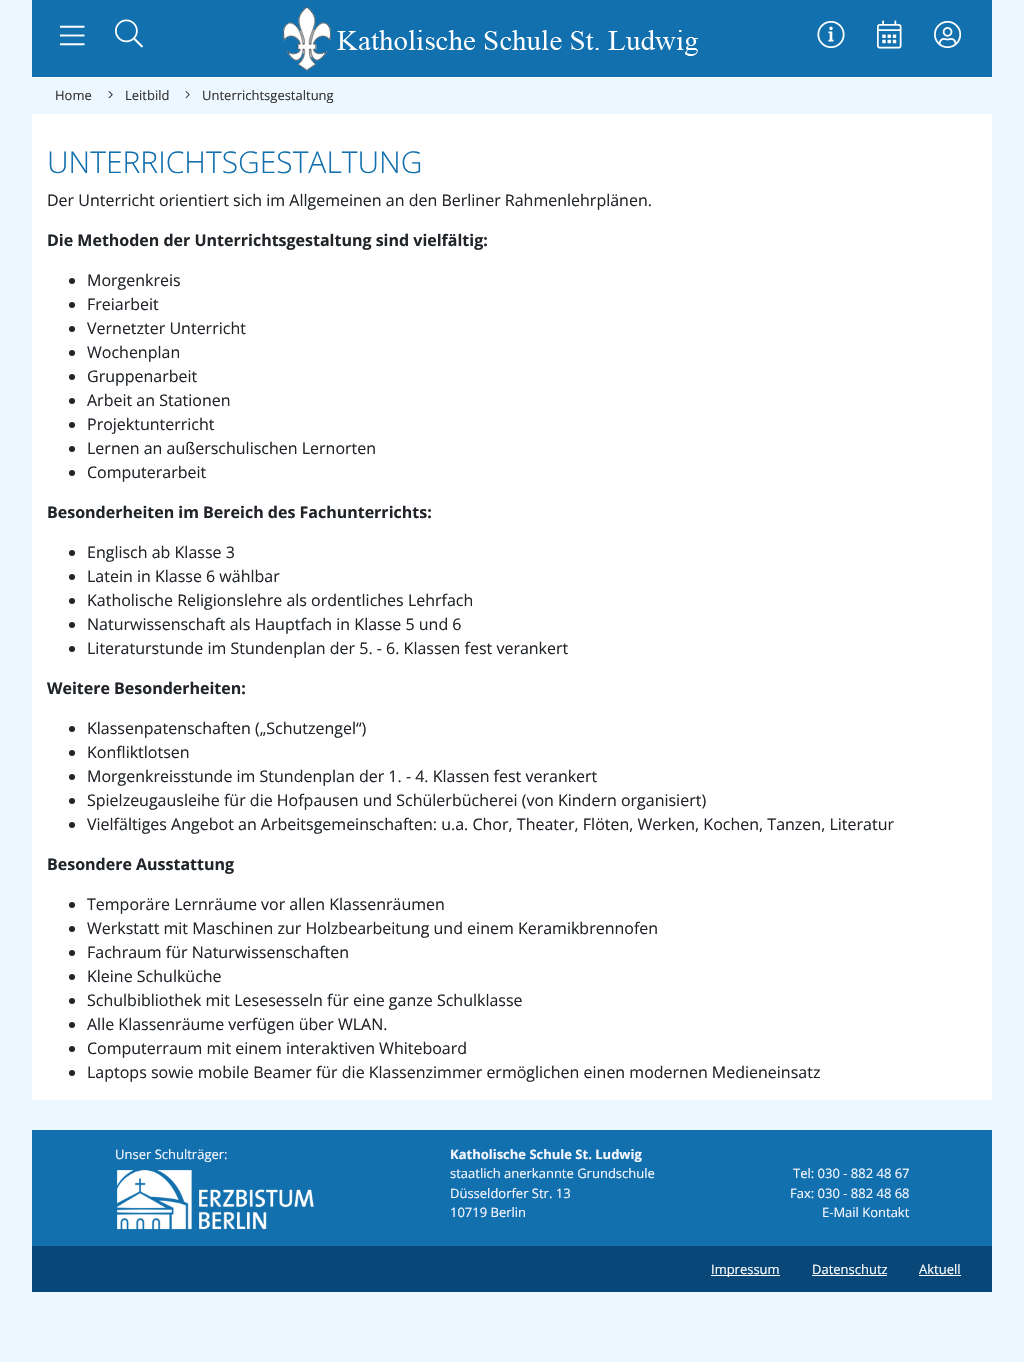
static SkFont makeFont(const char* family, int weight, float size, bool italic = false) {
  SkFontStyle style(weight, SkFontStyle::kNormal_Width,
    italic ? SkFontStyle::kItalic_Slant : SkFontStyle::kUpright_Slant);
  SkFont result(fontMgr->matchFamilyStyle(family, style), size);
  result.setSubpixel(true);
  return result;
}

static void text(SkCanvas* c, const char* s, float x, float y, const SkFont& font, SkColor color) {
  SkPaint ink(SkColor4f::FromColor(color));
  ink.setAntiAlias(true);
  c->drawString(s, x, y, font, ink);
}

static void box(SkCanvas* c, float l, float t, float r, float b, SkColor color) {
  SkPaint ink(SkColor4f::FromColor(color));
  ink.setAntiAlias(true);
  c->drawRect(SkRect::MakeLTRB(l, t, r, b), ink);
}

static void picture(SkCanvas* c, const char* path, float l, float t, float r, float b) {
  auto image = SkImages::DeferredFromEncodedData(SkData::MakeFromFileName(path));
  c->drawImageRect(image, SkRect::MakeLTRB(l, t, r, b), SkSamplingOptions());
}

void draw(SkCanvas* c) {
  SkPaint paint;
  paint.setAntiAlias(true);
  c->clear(0xffedf7ff);
  box(c, 32, 0, 992, 77, 0xff1270ae);
  box(c, 32, 77, 992, 78, 0xffffffff);
  picture(c, "img_01.png", 60, 25, 85, 46);
  picture(c, "img_02.png", 115, 19, 143, 48);
  picture(c, "img_03.png", 283, 7, 698, 71);
  picture(c, "img_04.png", 817, 21, 845, 48);
  picture(c, "img_05.png", 877, 20, 902, 49);
  picture(c, "img_06.png", 934, 20, 962, 49);
  SkFont face1 = makeFont("Open Sans", 400, 13);
  text(c, "Home", 55, 100, face1, 0xff333333);
  picture(c, "img_07.png", 108, 91, 113, 99);
  text(c, "Leitbild", 125, 100, face1, 0xff333333);
  picture(c, "img_08.png", 185, 91, 190, 99);
  text(c, "Unterrichtsgestaltung", 202, 100, face1, 0xff333333);
  box(c, 32, 114, 992, 1100, 0xffffffff);
  SkFont face2 = makeFont("Open Sans", 300, 30);
  text(c, "UNTERRICHTSGESTALTUNG", 47, 173, face2, 0xff1270ae);
  SkFont face3 = makeFont("Open Sans", 400, 16);
  text(c, "Der Unterricht orientiert sich im Allgemeinen an den Berliner Rahmenlehrplänen.", 47, 206, face3, 0xff212529);
  SkFont face4 = makeFont("Open Sans", 700, 16);
  text(c, "Die Methoden der Unterrichtsgestaltung sind vielfältig:", 47, 246, face4, 0xff212529);
  paint.setColor(0xff212529);
  c->drawCircle(72, 281, 3, paint);
  text(c, "Morgenkreis", 87, 286, face3, 0xff212529);
  c->drawCircle(72, 305, 3, paint);
  text(c, "Freiarbeit", 87, 310, face3, 0xff212529);
  c->drawCircle(72, 329, 3, paint);
  text(c, "Vernetzter Unterricht", 87, 334, face3, 0xff212529);
  c->drawCircle(72, 353, 3, paint);
  text(c, "Wochenplan", 87, 358, face3, 0xff212529);
  c->drawCircle(72, 377, 3, paint);
  text(c, "Gruppenarbeit", 87, 382, face3, 0xff212529);
  c->drawCircle(72, 401, 3, paint);
  text(c, "Arbeit an Stationen", 87, 406, face3, 0xff212529);
  c->drawCircle(72, 425, 3, paint);
  text(c, "Projektunterricht", 87, 430, face3, 0xff212529);
  c->drawCircle(72, 449, 3, paint);
  text(c, "Lernen an außerschulischen Lernorten", 87, 454, face3, 0xff212529);
  c->drawCircle(72, 473, 3, paint);
  text(c, "Computerarbeit", 87, 478, face3, 0xff212529);
  text(c, "Besonderheiten im Bereich des Fachunterrichts:", 47, 518, face4, 0xff212529);
  c->drawCircle(72, 553, 3, paint);
  text(c, "Englisch ab Klasse 3", 87, 558, face3, 0xff212529);
  c->drawCircle(72, 577, 3, paint);
  text(c, "Latein in Klasse 6 wählbar", 87, 582, face3, 0xff212529);
  c->drawCircle(72, 601, 3, paint);
  text(c, "Katholische Religionslehre als ordentliches Lehrfach", 87, 606, face3, 0xff212529);
  c->drawCircle(72, 625, 3, paint);
  text(c, "Naturwissenschaft als Hauptfach in Klasse 5 und 6", 87, 630, face3, 0xff212529);
  c->drawCircle(72, 649, 3, paint);
  text(c, "Literaturstunde im Stundenplan der 5. - 6. Klassen fest verankert", 87, 654, face3, 0xff212529);
  text(c, "Weitere Besonderheiten:", 47, 694, face4, 0xff212529);
  c->drawCircle(72, 729, 3, paint);
  text(c, "Klassenpatenschaften („Schutzengel“)", 87, 734, face3, 0xff212529);
  c->drawCircle(72, 753, 3, paint);
  text(c, "Konfliktlotsen", 87, 758, face3, 0xff212529);
  c->drawCircle(72, 777, 3, paint);
  text(c, "Morgenkreisstunde im Stundenplan der 1. - 4. Klassen fest verankert", 87, 782, face3, 0xff212529);
  c->drawCircle(72, 801, 3, paint);
  text(c, "Spielzeugausleihe für die Hofpausen und Schülerbücherei (von Kindern organisiert)", 87, 806, face3, 0xff212529);
  c->drawCircle(72, 825, 3, paint);
  text(c, "Vielfältiges Angebot an Arbeitsgemeinschaften: u.a. Chor, Theater, Flöten, Werken, Kochen, Tanzen, Literatur", 87, 830, face3, 0xff212529);
  text(c, "Besondere Ausstattung", 47, 870, face4, 0xff212529);
  c->drawCircle(72, 905, 3, paint);
  text(c, "Temporäre Lernräume vor allen Klassenräumen", 87, 910, face3, 0xff212529);
  c->drawCircle(72, 929, 3, paint);
  text(c, "Werkstatt mit Maschinen zur Holzbearbeitung und einem Keramikbrennofen", 87, 934, face3, 0xff212529);
  c->drawCircle(72, 953, 3, paint);
  text(c, "Fachraum für Naturwissenschaften", 87, 958, face3, 0xff212529);
  c->drawCircle(72, 977, 3, paint);
  text(c, "Kleine Schulküche", 87, 982, face3, 0xff212529);
  c->drawCircle(72, 1001, 3, paint);
  text(c, "Schulbibliothek mit Lesesesseln für eine ganze Schulklasse", 87, 1006, face3, 0xff212529);
  c->drawCircle(72, 1025, 3, paint);
  text(c, "Alle Klassenräume verfügen über WLAN.", 87, 1030, face3, 0xff212529);
  c->drawCircle(72, 1049, 3, paint);
  text(c, "Computerraum mit einem interaktiven Whiteboard", 87, 1054, face3, 0xff212529);
  c->drawCircle(72, 1073, 3, paint);
  text(c, "Laptops sowie mobile Beamer für die Klassenzimmer ermöglichen einen modernen Medieneinsatz", 87, 1078, face3, 0xff212529);
  box(c, 32, 1130, 992, 1246, 0xff1270ae);
  text(c, "Unser Schulträger:", 115, 1159, face1, 0xfff6f7ff);
  picture(c, "img_09.png", 117, 1169, 314, 1230);
  SkFont face5 = makeFont("Open Sans", 700, 13);
  text(c, "Katholische Schule St. Ludwig", 450, 1159, face5, 0xfff6f7ff);
  text(c, "staatlich anerkannte Grundschule", 450, 1178, face1, 0xfff6f7ff);
  text(c, "Düsseldorfer Str. 13", 450, 1198, face1, 0xfff6f7ff);
  text(c, "10719 Berlin", 450, 1217, face1, 0xfff6f7ff);
  text(c, "Tel: 030 - 882 48 67", 793, 1178, face1, 0xfff6f7ff);
  text(c, "Fax: 030 - 882 48 68", 790, 1198, face1, 0xfff6f7ff);
  text(c, "E-Mail Kontakt", 822, 1217, face1, 0xfff6f7ff);
  box(c, 32, 1246, 992, 1292, 0xff094779);
  box(c, 711, 1275, 780, 1276, 0xffffffff);
  text(c, "Impressum", 711, 1274, face1, 0xffffffff);
  text(c, "Datenschutz", 812, 1274, face1, 0xffffffff);
  box(c, 812, 1275, 887, 1276, 0xffffffff);
  text(c, "Aktuell", 919, 1274, face1, 0xffffffff);
  box(c, 919, 1275, 961, 1276, 0xffffffff);
}
